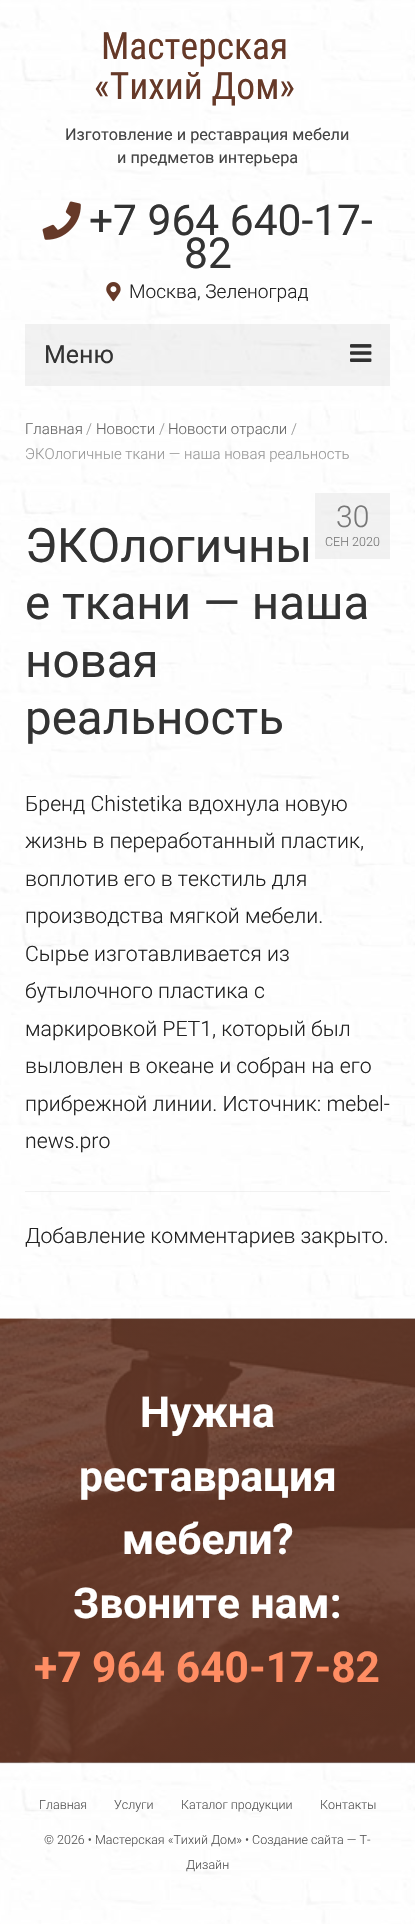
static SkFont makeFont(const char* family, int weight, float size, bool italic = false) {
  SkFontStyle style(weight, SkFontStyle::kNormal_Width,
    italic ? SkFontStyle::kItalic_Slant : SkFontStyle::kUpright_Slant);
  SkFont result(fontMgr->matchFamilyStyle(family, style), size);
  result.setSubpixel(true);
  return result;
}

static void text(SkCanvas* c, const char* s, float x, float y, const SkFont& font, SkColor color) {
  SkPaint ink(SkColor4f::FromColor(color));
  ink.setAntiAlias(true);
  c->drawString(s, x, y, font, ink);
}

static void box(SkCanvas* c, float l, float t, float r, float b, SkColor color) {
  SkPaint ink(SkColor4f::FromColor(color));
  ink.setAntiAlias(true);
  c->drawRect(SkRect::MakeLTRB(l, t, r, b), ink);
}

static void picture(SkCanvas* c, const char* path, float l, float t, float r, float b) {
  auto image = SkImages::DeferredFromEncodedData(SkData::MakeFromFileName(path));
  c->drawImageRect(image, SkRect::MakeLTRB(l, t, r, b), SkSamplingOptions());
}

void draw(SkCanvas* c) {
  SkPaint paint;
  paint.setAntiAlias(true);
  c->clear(0xffffffff);
  picture(c, "img_01.png", 0, 0, 415, 1924);
  SkFont face1 = makeFont("Roboto Condensed", 400, 37.5f);
  text(c, "Мастерская", 101, 59, face1, 0xff663928);
  text(c, "«Тихий Дом»", 94, 99, face1, 0xff663928);
  SkFont face2 = makeFont("Roboto", 400, 16.25f);
  text(c, "Изготовление и реставрация мебели", 65, 140, face2, 0xff444444);
  text(c, "и предметов интерьера", 117, 163, face2, 0xff444444);
  picture(c, "img_02.png", 42, 201, 81, 240);
  SkFont face3 = makeFont("Roboto", 400, 42.5f);
  text(c, "+7 964 640-17-", 89, 235, face3, 0xff333333);
  text(c, "82", 184, 268, face3, 0xff333333);
  picture(c, "img_03.png", 106, 282, 121, 302);
  SkFont face4 = makeFont("Roboto", 300, 19.1f);
  text(c, "Москва, Зеленоград", 129, 298, face4, 0xff222222);
  box(c, 25, 324, 390, 386, 0x0d000000);
  SkFont face5 = makeFont("Roboto", 400, 25);
  text(c, "Меню", 44, 363, face5, 0xff333333);
  picture(c, "img_04.png", 350, 344, 372, 362);
  SkFont face6 = makeFont("Roboto", 300, 15);
  text(c, "Главная", 25, 434, face6, 0xff666666);
  text(c, "/", 86, 434, face6, 0xff999999);
  text(c, "Новости", 96, 434, face6, 0xff666666);
  text(c, "/", 159, 434, face6, 0xff999999);
  text(c, "Новости отрасли", 168, 434, face6, 0xff666666);
  text(c, "/", 291, 434, face6, 0xff999999);
  text(c, "ЭКОлогичные ткани — наша новая реальность", 25, 459, face6, 0xff999999);
  box(c, 315, 493, 390, 559, 0x0d000000);
  SkFont face7 = makeFont("Roboto", 300, 30);
  text(c, "30", 336, 527, face7, 0xff777777);
  SkFont face8 = makeFont("Roboto", 300, 12.5f);
  text(c, "СЕН 2020", 325, 546, face8, 0xff777777);
  SkFont face9 = makeFont("Roboto", 400, 47.5f);
  text(c, "ЭКОлогичны", 25, 562, face9, 0xff333333);
  text(c, "е ткани — наша", 25, 619, face9, 0xff333333);
  text(c, "новая", 25, 677, face9, 0xff333333);
  text(c, "реальность", 25, 734, face9, 0xff333333);
  SkFont face10 = makeFont("Roboto", 300, 21.25f);
  text(c, "Бренд Chistetika вдохнула новую", 25, 811, face10, 0xff222222);
  text(c, "жизнь в переработанный пластик,", 25, 848, face10, 0xff222222);
  text(c, "воплотив его в текстиль для", 25, 886, face10, 0xff222222);
  text(c, "производства мягкой мебели.", 25, 923, face10, 0xff222222);
  text(c, "Сырье изготавливается из", 25, 961, face10, 0xff222222);
  text(c, "бутылочного пластика с", 25, 998, face10, 0xff222222);
  text(c, "маркировкой PET1, который был", 25, 1036, face10, 0xff222222);
  text(c, "выловлен в океане и собран на его", 25, 1073, face10, 0xff222222);
  text(c, "прибрежной линии. Источник: mebel-", 25, 1111, face10, 0xff222222);
  text(c, "news.pro", 25, 1148, face10, 0xff222222);
  box(c, 25, 1191, 390, 1192, 0x0d000000);
  text(c, "Добавление комментариев закрыто.", 25, 1243, face10, 0xff222222);
  picture(c, "img_05.png", 0, 1318, 415, 1763);
  SkFont face11 = makeFont("Roboto", 700, 42.5f);
  text(c, "Нужна", 140, 1427, face11, 0xffffffff);
  text(c, "реставрация", 79, 1491, face11, 0xffffffff);
  text(c, "мебели?", 122, 1554, face11, 0xffffffff);
  text(c, "Звоните нам:", 73, 1618, face11, 0xffffffff);
  text(c, "+7 964 640-17-82", 34, 1682, face11, 0xffff8d63);
  box(c, 0, 1763, 415, 1764, 0x12663928);
  text(c, "Главная", 39, 1809, face8, 0xff555555);
  text(c, "Услуги", 114, 1809, face8, 0xff555555);
  text(c, "Каталог продукции", 181, 1809, face8, 0xff555555);
  text(c, "Контакты", 320, 1809, face8, 0xff555555);
  text(c, "© 2026 • Мастерская «Тихий Дом» • Создание сайта — Т-", 44, 1844, face8, 0xff555555);
  text(c, "Дизайн", 186, 1869, face8, 0xff555555);
}
